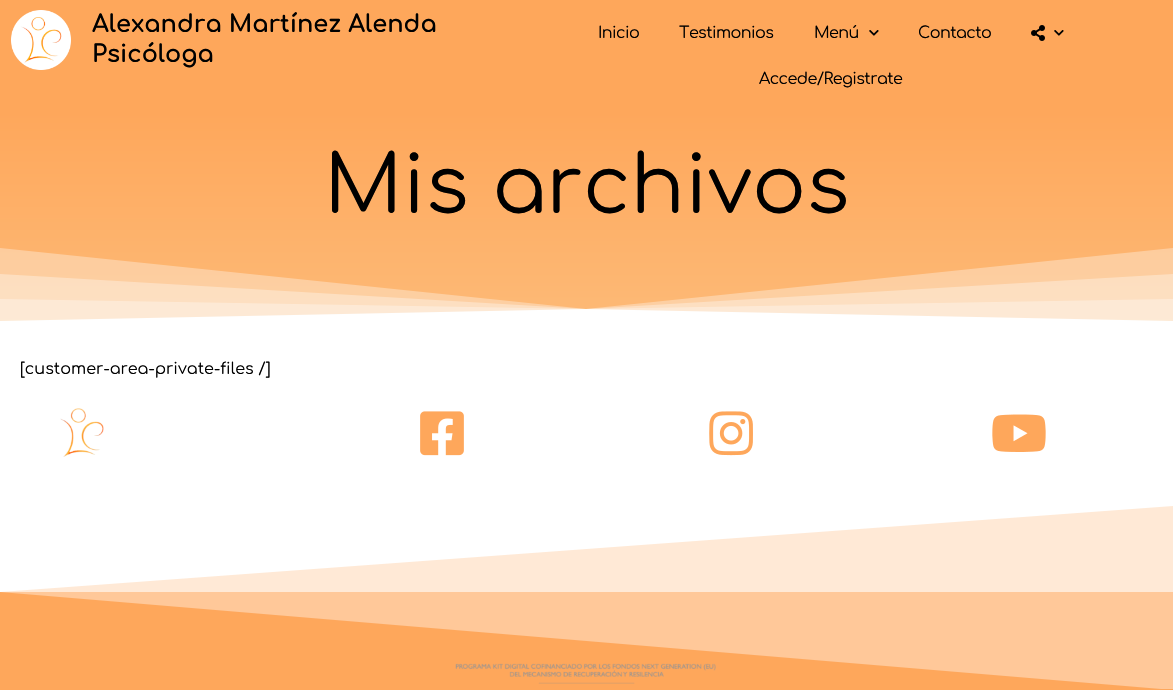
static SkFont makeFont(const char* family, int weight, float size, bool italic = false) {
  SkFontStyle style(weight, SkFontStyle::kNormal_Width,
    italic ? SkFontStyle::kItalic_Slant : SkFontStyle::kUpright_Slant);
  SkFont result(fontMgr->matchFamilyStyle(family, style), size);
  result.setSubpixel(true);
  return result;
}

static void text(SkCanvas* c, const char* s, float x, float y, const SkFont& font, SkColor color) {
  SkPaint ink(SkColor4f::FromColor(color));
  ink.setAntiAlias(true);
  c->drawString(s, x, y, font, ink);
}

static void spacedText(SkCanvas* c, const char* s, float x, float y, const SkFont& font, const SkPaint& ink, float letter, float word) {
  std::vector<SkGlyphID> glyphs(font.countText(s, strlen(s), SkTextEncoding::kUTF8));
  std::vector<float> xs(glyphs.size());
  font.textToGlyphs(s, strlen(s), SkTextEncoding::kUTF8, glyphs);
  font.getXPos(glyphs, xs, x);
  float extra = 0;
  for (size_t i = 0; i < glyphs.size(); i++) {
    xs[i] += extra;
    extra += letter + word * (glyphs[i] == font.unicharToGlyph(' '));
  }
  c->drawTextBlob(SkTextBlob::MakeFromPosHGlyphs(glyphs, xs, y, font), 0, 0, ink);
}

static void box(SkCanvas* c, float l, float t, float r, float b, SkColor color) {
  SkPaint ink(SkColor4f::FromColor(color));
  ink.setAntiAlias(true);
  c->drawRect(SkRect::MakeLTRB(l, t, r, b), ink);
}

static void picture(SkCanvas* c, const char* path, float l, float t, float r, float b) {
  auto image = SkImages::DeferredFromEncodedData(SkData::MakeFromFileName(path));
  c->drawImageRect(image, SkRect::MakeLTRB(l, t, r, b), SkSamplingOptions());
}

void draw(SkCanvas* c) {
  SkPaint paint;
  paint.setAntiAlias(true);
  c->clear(0xffffffff);
  box(c, 0, 592, 1173, 689, 0xffffd3ad);
  box(c, 0, 0, 1173, 112, 0xfffea75b);
  picture(c, "img_01.png", 11, 10, 71, 70);
  SkFont face1 = makeFont("Comfortaa", 700, 24);
  text(c, "Alexandra Martínez Alenda", 92, 32, face1, 0xff000000);
  text(c, "Psicóloga", 92, 62, face1, 0xff000000);
  SkFont face2 = makeFont("Comfortaa", 400, 16);
  paint.setColor(0xff000000);
  spacedText(c, "Inicio", 598, 38, face2, paint, -0.6f, 0);
  spacedText(c, "Testimonios", 679, 38, face2, paint, -0.6f, 0);
  spacedText(c, "Menú", 814, 38, face2, paint, -0.6f, 0);
  picture(c, "img_02.png", 869, 30, 879, 36);
  spacedText(c, "Contacto", 918, 38, face2, paint, -0.6f, 0);
  picture(c, "img_03.png", 1031, 25, 1045, 41);
  picture(c, "img_02.png", 1054, 30, 1064, 36);
  spacedText(c, "Accede/Registrate", 759, 84, face2, paint, -0.6f, 0);
  {
    const SkColor colors[] = {0xfffea75b, 0xfffdba77};
    const float stops[] = {0, 1};
    const SkPoint ends[] = {{587, 112}, {587, 325}};
    paint.setShader(SkGradientShader::MakeLinear(ends, colors, stops, 2, SkTileMode::kClamp));
    paint.setAlpha(255);
  }
  c->drawRect(SkRect::MakeLTRB(0, 112, 1173, 321), paint);
  SkFont face3 = makeFont("Comfortaa", 400, 80);
  text(c, "Mis archivos", 324, 213, face3, 0xff000000);
  paint.setShader(nullptr);
  paint.setColor(0x54ffffff);
  c->drawPath(SkPathBuilder().moveTo(1173, 326).lineTo(1173, 248).lineTo(586, 309).lineTo(-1, 248).lineTo(-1, 326).close().detach(), paint);
  c->drawPath(SkPathBuilder().moveTo(1173, 326).lineTo(1173, 274).lineTo(586, 309).lineTo(-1, 274).lineTo(-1, 326).close().detach(), paint);
  c->drawPath(SkPathBuilder().moveTo(1173, 326).lineTo(1173, 299).lineTo(586, 309).lineTo(-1, 299).lineTo(-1, 326).close().detach(), paint);
  paint.setColor(0xffffffff);
  c->drawPath(SkPathBuilder().moveTo(1173, 326).lineTo(1173, 321).lineTo(586, 309).lineTo(-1, 321).lineTo(-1, 326).close().detach(), paint);
  text(c, "[customer-area-private-files /]", 20, 374, face2, 0xff000000);
  picture(c, "img_04.png", 60, 408, 104, 457);
  picture(c, "img_05.png", 420, 411, 464, 456);
  picture(c, "img_06.png", 709, 411, 753, 456);
  picture(c, "img_07.png", 992, 414, 1046, 452);
  paint.setColor(0xfffea75b);
  c->drawPath(SkPathBuilder().moveTo(1173, 690).lineTo(-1, 690).lineTo(-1, 592).close().detach(), paint);
  paint.setColor(0x40fea75b);
  c->drawPath(SkPathBuilder().moveTo(-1, 690).lineTo(1173, 690).lineTo(1173, 506).lineTo(-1, 592).close().detach(), paint);
  picture(c, "img_08.png", 455, 663, 716, 684);
  box(c, 1161, 689, 1173, 690, 0xfffea75b);
}
